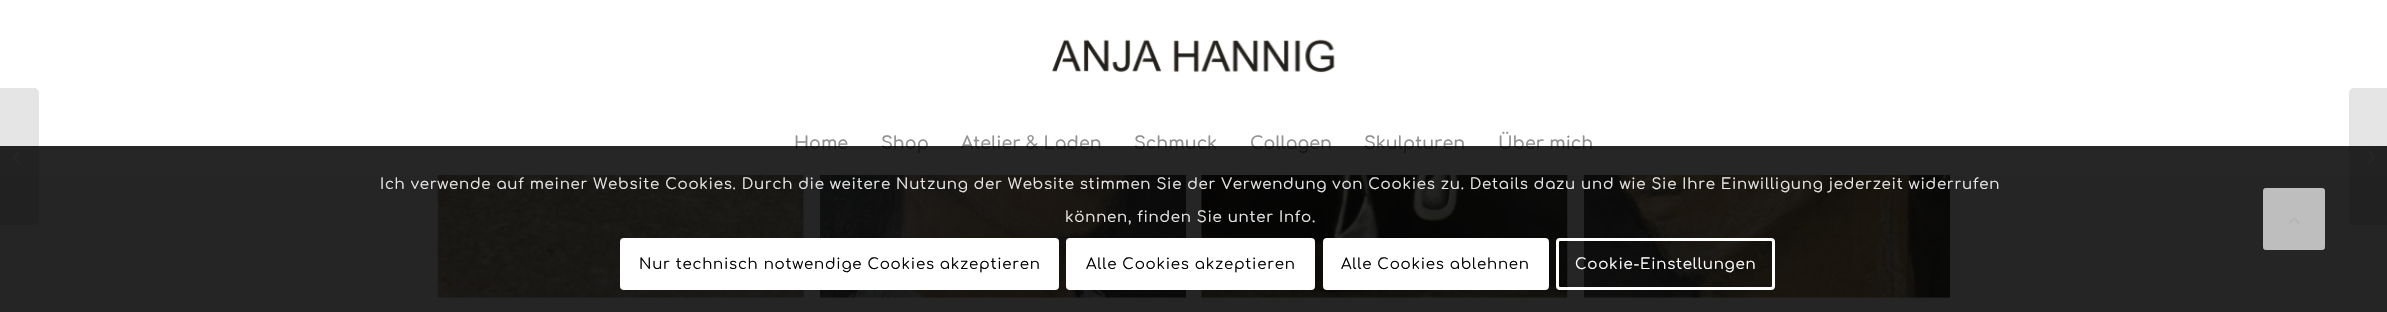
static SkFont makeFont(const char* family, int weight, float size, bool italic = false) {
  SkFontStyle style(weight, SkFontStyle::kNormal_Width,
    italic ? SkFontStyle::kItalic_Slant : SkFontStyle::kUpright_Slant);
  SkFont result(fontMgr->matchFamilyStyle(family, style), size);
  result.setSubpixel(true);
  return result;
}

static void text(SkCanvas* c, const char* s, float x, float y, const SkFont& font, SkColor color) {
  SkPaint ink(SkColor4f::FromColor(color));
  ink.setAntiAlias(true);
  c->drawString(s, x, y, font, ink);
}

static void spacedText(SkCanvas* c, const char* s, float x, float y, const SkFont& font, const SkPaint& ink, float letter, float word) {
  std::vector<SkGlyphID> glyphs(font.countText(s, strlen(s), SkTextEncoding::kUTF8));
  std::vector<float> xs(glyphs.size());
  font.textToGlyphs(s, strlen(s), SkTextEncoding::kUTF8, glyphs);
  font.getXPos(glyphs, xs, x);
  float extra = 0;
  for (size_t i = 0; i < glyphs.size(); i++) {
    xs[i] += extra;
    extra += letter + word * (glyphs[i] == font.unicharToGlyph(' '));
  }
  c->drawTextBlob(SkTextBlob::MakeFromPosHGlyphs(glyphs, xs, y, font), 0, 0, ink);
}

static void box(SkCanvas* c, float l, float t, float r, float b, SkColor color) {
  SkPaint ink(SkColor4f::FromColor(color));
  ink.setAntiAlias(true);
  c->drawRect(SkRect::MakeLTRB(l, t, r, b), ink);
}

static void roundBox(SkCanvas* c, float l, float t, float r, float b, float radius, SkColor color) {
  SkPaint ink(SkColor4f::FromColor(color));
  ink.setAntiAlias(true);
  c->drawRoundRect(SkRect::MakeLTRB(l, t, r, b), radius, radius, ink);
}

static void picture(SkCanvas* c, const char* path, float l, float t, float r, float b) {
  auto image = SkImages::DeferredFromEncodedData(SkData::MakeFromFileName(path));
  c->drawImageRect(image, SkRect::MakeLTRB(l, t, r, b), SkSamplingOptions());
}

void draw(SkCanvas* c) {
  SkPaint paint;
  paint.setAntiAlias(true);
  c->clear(0xfff8f8f8);
  box(c, 0, 0, 2387, 175, 0xffffffff);
  paint.setColor(0x1a000000);
  c->drawPath(SkPathBuilder().moveTo(0, 88).lineTo(34, 88).cubicTo(37, 88, 39, 90, 39, 93).lineTo(39, 220).cubicTo(39, 223, 37, 225, 34, 225).lineTo(0, 225).close().detach(), paint);
  picture(c, "img_01.png", 13, 150, 20, 165);
  picture(c, "img_02.png", 1052, 39, 1335, 73);
  SkFont face1 = makeFont("Comfortaa", 600, 17.5f);
  text(c, "Home", 794, 149, face1, 0xff919191);
  text(c, "Shop", 881, 149, face1, 0xff919191);
  text(c, "Atelier & Laden", 961, 149, face1, 0xff919191);
  text(c, "Schmuck", 1134, 149, face1, 0xff919191);
  text(c, "Collagen", 1250, 149, face1, 0xff919191);
  text(c, "Skulpturen", 1364, 149, face1, 0xff919191);
  text(c, "Über mich", 1498, 149, face1, 0xff919191);
  c->drawPath(SkPathBuilder().moveTo(2354, 88).lineTo(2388, 88).lineTo(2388, 225).lineTo(2354, 225).cubicTo(2351, 225, 2349, 223, 2349, 220).lineTo(2349, 93).cubicTo(2349, 90, 2351, 88, 2354, 88).close().detach(), paint);
  picture(c, "img_03.png", 2368, 150, 2375, 165);
  picture(c, "img_04.png", 437, 175, 804, 298);
  picture(c, "img_05.png", 820, 175, 1187, 298);
  picture(c, "img_06.png", 1201, 175, 1568, 298);
  picture(c, "img_07.png", 1583, 175, 1950, 298);
  box(c, 0, 146, 2387, 312, 0xd9000000);
  SkFont face2 = makeFont("Comfortaa", 400, 15);
  paint.setColor(0xffe8e7e7);
  spacedText(c, "Ich verwende auf meiner Website Cookies. Durch die weitere Nutzung der Website stimmen Sie der Verwendung von Cookies zu. Details dazu und wie Sie Ihre Einwilligung jederzeit widerrufen", 380, 189, face2, paint, 0.75f, 0);
  spacedText(c, "können, finden Sie unter Info.", 1065, 222, face2, paint, 0.75f, 0);
  roundBox(c, 620, 238, 1059, 290, 4, 0xffffffff);
  paint.setColor(0xff000000);
  spacedText(c, "Nur technisch notwendige Cookies akzeptieren", 639, 269, face2, paint, 0.75f, 0);
  roundBox(c, 1066, 238, 1315, 290, 4, 0xffffffff);
  spacedText(c, "Alle Cookies akzeptieren", 1086, 269, face2, paint, 0.75f, 0);
  paint.setColor(0xffffffff);
  c->drawRoundRect(SkRect::MakeLTRB(1324.5f, 239.5f, 1547.5f, 288.5f), 2.5f, 2.5f, paint);
  paint.setStyle(SkPaint::kStroke_Style);
  paint.setStrokeWidth(3);
  c->drawRoundRect(SkRect::MakeLTRB(1324.5f, 239.5f, 1547.5f, 288.5f), 2.5f, 2.5f, paint);
  paint.setStyle(SkPaint::kFill_Style);
  paint.setColor(0xff000000);
  spacedText(c, "Alle Cookies ablehnen", 1341, 269, face2, paint, 0.75f, 0);
  paint.setStyle(SkPaint::kStroke_Style);
  paint.setColor(0xffffffff);
  c->drawRoundRect(SkRect::MakeLTRB(1557.5f, 239.5f, 1773.5f, 288.5f), 2.5f, 2.5f, paint);
  paint.setStyle(SkPaint::kFill_Style);
  spacedText(c, "Cookie-Einstellungen", 1575, 269, face2, paint, 0.75f, 0);
  paint.setColor(0xffbebebe);
  c->drawRoundRect(SkRect::MakeLTRB(2263.5f, 188.5f, 2324.5f, 249.5f), 2, 2, paint);
  paint.setStyle(SkPaint::kStroke_Style);
  paint.setStrokeWidth(1);
  c->drawRoundRect(SkRect::MakeLTRB(2263.5f, 188.5f, 2324.5f, 249.5f), 2, 2, paint);
  picture(c, "img_08.png", 2289, 217, 2299, 224);
}
